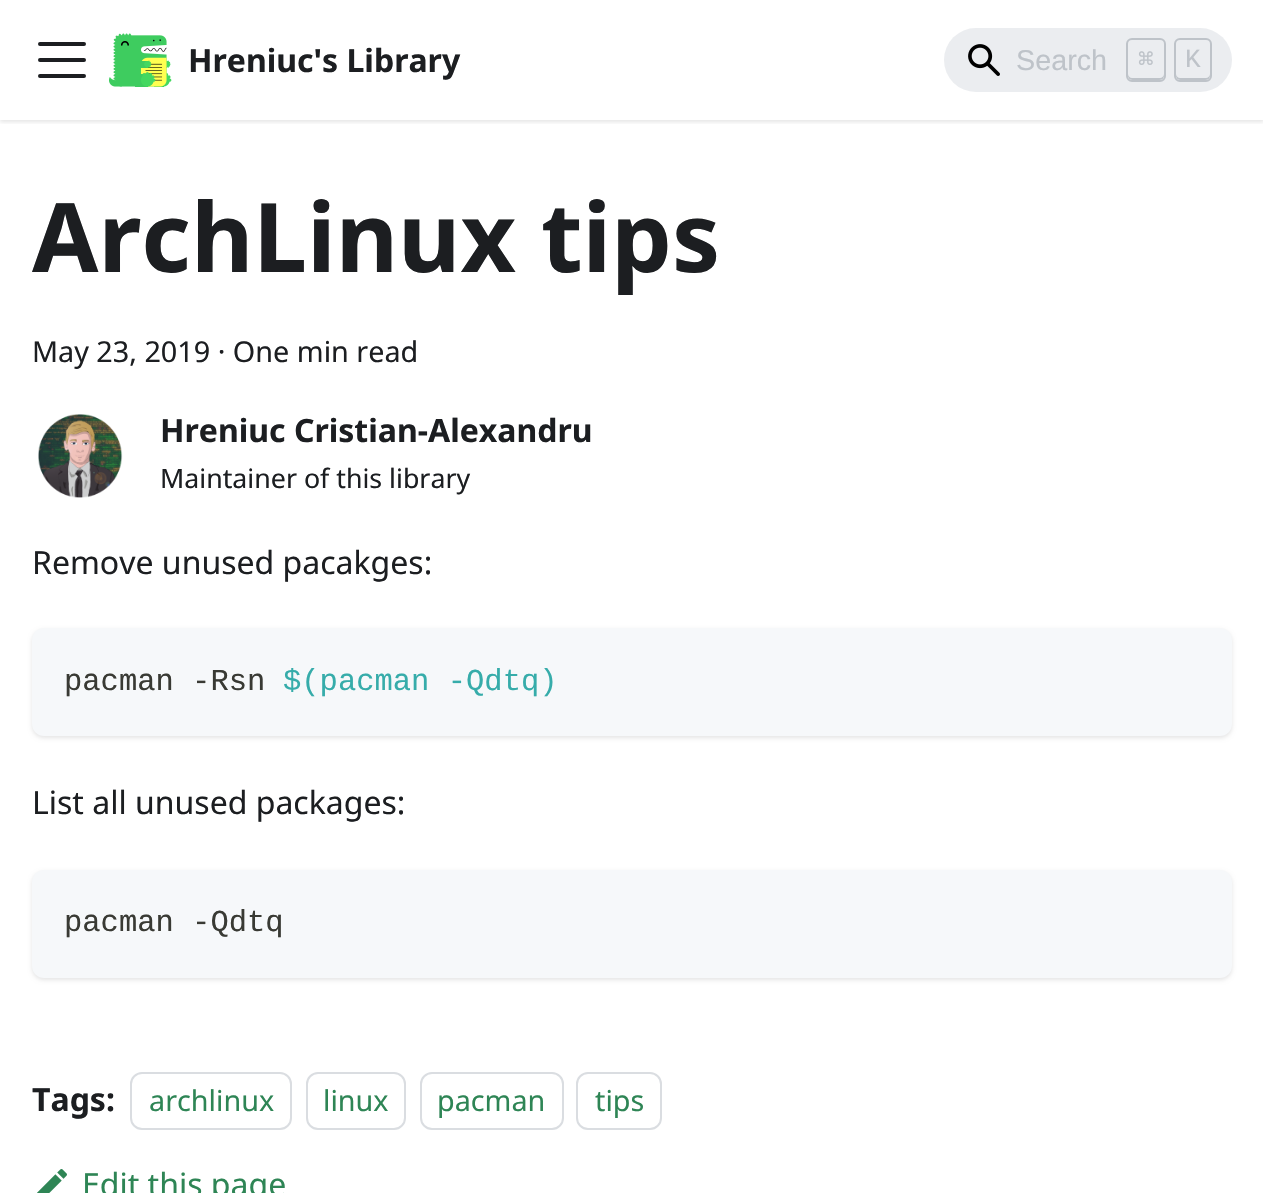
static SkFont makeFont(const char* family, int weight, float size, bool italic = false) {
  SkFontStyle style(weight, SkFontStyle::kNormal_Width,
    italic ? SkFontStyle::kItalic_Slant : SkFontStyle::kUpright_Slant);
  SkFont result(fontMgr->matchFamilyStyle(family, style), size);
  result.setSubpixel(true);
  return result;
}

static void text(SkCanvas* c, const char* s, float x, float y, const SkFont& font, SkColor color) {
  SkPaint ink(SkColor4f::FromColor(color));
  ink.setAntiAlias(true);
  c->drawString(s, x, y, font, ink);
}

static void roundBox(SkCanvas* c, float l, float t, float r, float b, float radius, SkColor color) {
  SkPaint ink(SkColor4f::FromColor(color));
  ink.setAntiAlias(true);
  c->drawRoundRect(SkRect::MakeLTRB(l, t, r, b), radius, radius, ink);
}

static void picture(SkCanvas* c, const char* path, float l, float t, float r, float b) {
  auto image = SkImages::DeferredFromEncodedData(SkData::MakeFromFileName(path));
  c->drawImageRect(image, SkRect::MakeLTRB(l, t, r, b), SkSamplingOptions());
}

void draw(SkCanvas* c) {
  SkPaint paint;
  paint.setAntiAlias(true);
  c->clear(0xffffffff);
  c->save();
  c->clipRect(SkRect::MakeLTRB(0, 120, 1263, 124));
  paint.setColor(0x1a000000);
  paint.setMaskFilter(SkMaskFilter::MakeBlur(kNormal_SkBlurStyle, 2));
  c->drawRect(SkRect::MakeLTRB(0, 2, 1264, 122), paint);
  paint.setMaskFilter(nullptr);
  c->restore();
  paint.setStyle(SkPaint::kStroke_Style);
  paint.setStrokeWidth(4);
  paint.setStrokeCap(SkPaint::kRound_Cap);
  paint.setColor(0xff1c1e21);
  c->drawPath(SkPathBuilder().moveTo(40, 44).lineTo(84, 44).moveTo(40, 60).lineTo(84, 60).moveTo(40, 76).lineTo(84, 76).detach(), paint);
  picture(c, "img_01.png", 109, 33, 172, 87);
  SkFont face1 = makeFont("Noto Sans", 700, 32);
  text(c, "Hreniuc's Library", 188, 72, face1, 0xff1c1e21);
  roundBox(c, 944, 28, 1232, 92, 32, 0xffebedf0);
  picture(c, "img_02.png", 968, 44, 1000, 76);
  SkFont face2 = makeFont("Liberation Sans", 400, 28.75f);
  text(c, "Search", 1016, 70, face2, 0xffbec3c9);
  paint.setStyle(SkPaint::kFill_Style);
  paint.setColor(0xffbec3c9);
  c->drawPath(SkPathBuilder().moveTo(1128, 74).cubicTo(1128, 80.5f, 1130.5f, 80, 1136.5f, 80).lineTo(1155.5f, 80).cubicTo(1161.5f, 80, 1164, 80.5f, 1164, 74).cubicTo(1164, 76, 1162, 78, 1160, 78).lineTo(1132, 78).cubicTo(1130, 78, 1128, 76, 1128, 74).close().detach(), paint);
  paint.setStyle(SkPaint::kStroke_Style);
  paint.setStrokeWidth(2);
  paint.setStrokeCap(SkPaint::kButt_Cap);
  c->drawRoundRect(SkRect::MakeLTRB(1127, 39, 1165, 81), 5, 5, paint);
  SkFont face3 = makeFont("DejaVu Sans Mono", 400, 26);
  text(c, "⌘", 1138, 68, face3, 0xffbec3c9);
  paint.setStyle(SkPaint::kFill_Style);
  c->drawPath(SkPathBuilder().moveTo(1176, 74).cubicTo(1176, 80.5f, 1178.5f, 80, 1184.5f, 80).lineTo(1201.5f, 80).cubicTo(1207.5f, 80, 1210, 80.5f, 1210, 74).cubicTo(1210, 76, 1208, 78, 1206, 78).lineTo(1180, 78).cubicTo(1178, 78, 1176, 76, 1176, 74).close().detach(), paint);
  paint.setStyle(SkPaint::kStroke_Style);
  c->drawRoundRect(SkRect::MakeLTRB(1175, 39, 1211, 81), 5, 5, paint);
  SkFont face4 = makeFont("Liberation Mono", 400, 26);
  text(c, "K", 1185, 67, face4, 0xffbec3c9);
  SkFont face5 = makeFont("Noto Sans", 700, 96);
  text(c, "ArchLinux tips", 32, 272, face5, 0xff1c1e21);
  SkFont face6 = makeFont("Noto Sans", 400, 28.75f);
  text(c, "May 23, 2019 · One min read", 32, 362, face6, 0xff1c1e21);
  picture(c, "img_03.png", 38, 414, 123, 498);
  text(c, "Hreniuc Cristian-Alexandru", 160, 442, face1, 0xff1c1e21);
  SkFont face7 = makeFont("Noto Sans", 400, 26.75f);
  text(c, "Maintainer of this library", 160, 488, face7, 0xff1c1e21);
  SkFont face8 = makeFont("Noto Sans", 400, 32);
  text(c, "Remove unused pacakges:", 32, 574, face8, 0xff1c1e21);
  paint.setStyle(SkPaint::kFill_Style);
  paint.setColor(0x1a000000);
  paint.setMaskFilter(SkMaskFilter::MakeBlur(kNormal_SkBlurStyle, 2));
  c->drawRoundRect(SkRect::MakeLTRB(32, 630, 1232, 738), 12, 12, paint);
  paint.setMaskFilter(nullptr);
  roundBox(c, 32, 628, 1232, 736, 12, 0xfff6f8fa);
  SkFont face9 = makeFont("Liberation Mono", 400, 30.5f);
  text(c, "pacman -Rsn", 64, 690, face9, 0xff393a34);
  text(c, "$(pacman -Qdtq)", 283, 690, face9, 0xff36acaa);
  text(c, "List all unused packages:", 32, 814, face8, 0xff1c1e21);
  paint.setMaskFilter(SkMaskFilter::MakeBlur(kNormal_SkBlurStyle, 2));
  c->drawRoundRect(SkRect::MakeLTRB(32, 872, 1232, 980), 12, 12, paint);
  paint.setMaskFilter(nullptr);
  roundBox(c, 32, 870, 1232, 978, 12, 0xfff6f8fa);
  text(c, "pacman -Qdtq", 64, 931, face9, 0xff393a34);
  text(c, "Tags:", 32, 1111, face1, 0xff1c1e21);
  paint.setStyle(SkPaint::kStroke_Style);
  paint.setColor(0xffdadde1);
  c->drawRoundRect(SkRect::MakeLTRB(131, 1073, 291, 1129), 11, 11, paint);
  text(c, "archlinux", 149, 1111, face6, 0xff2e8555);
  c->drawRoundRect(SkRect::MakeLTRB(307, 1073, 405, 1129), 11, 11, paint);
  text(c, "linux", 323, 1111, face6, 0xff2e8555);
  c->drawRoundRect(SkRect::MakeLTRB(421, 1073, 563, 1129), 11, 11, paint);
  text(c, "pacman", 437, 1111, face6, 0xff2e8555);
  c->drawRoundRect(SkRect::MakeLTRB(577, 1073, 661, 1129), 11, 11, paint);
  text(c, "tips", 595, 1111, face6, 0xff2e8555);
  picture(c, "img_04.png", 37, 1169, 67, 1193);
  text(c, "Edit this page", 82, 1196, face8, 0xff2e8555);
}
